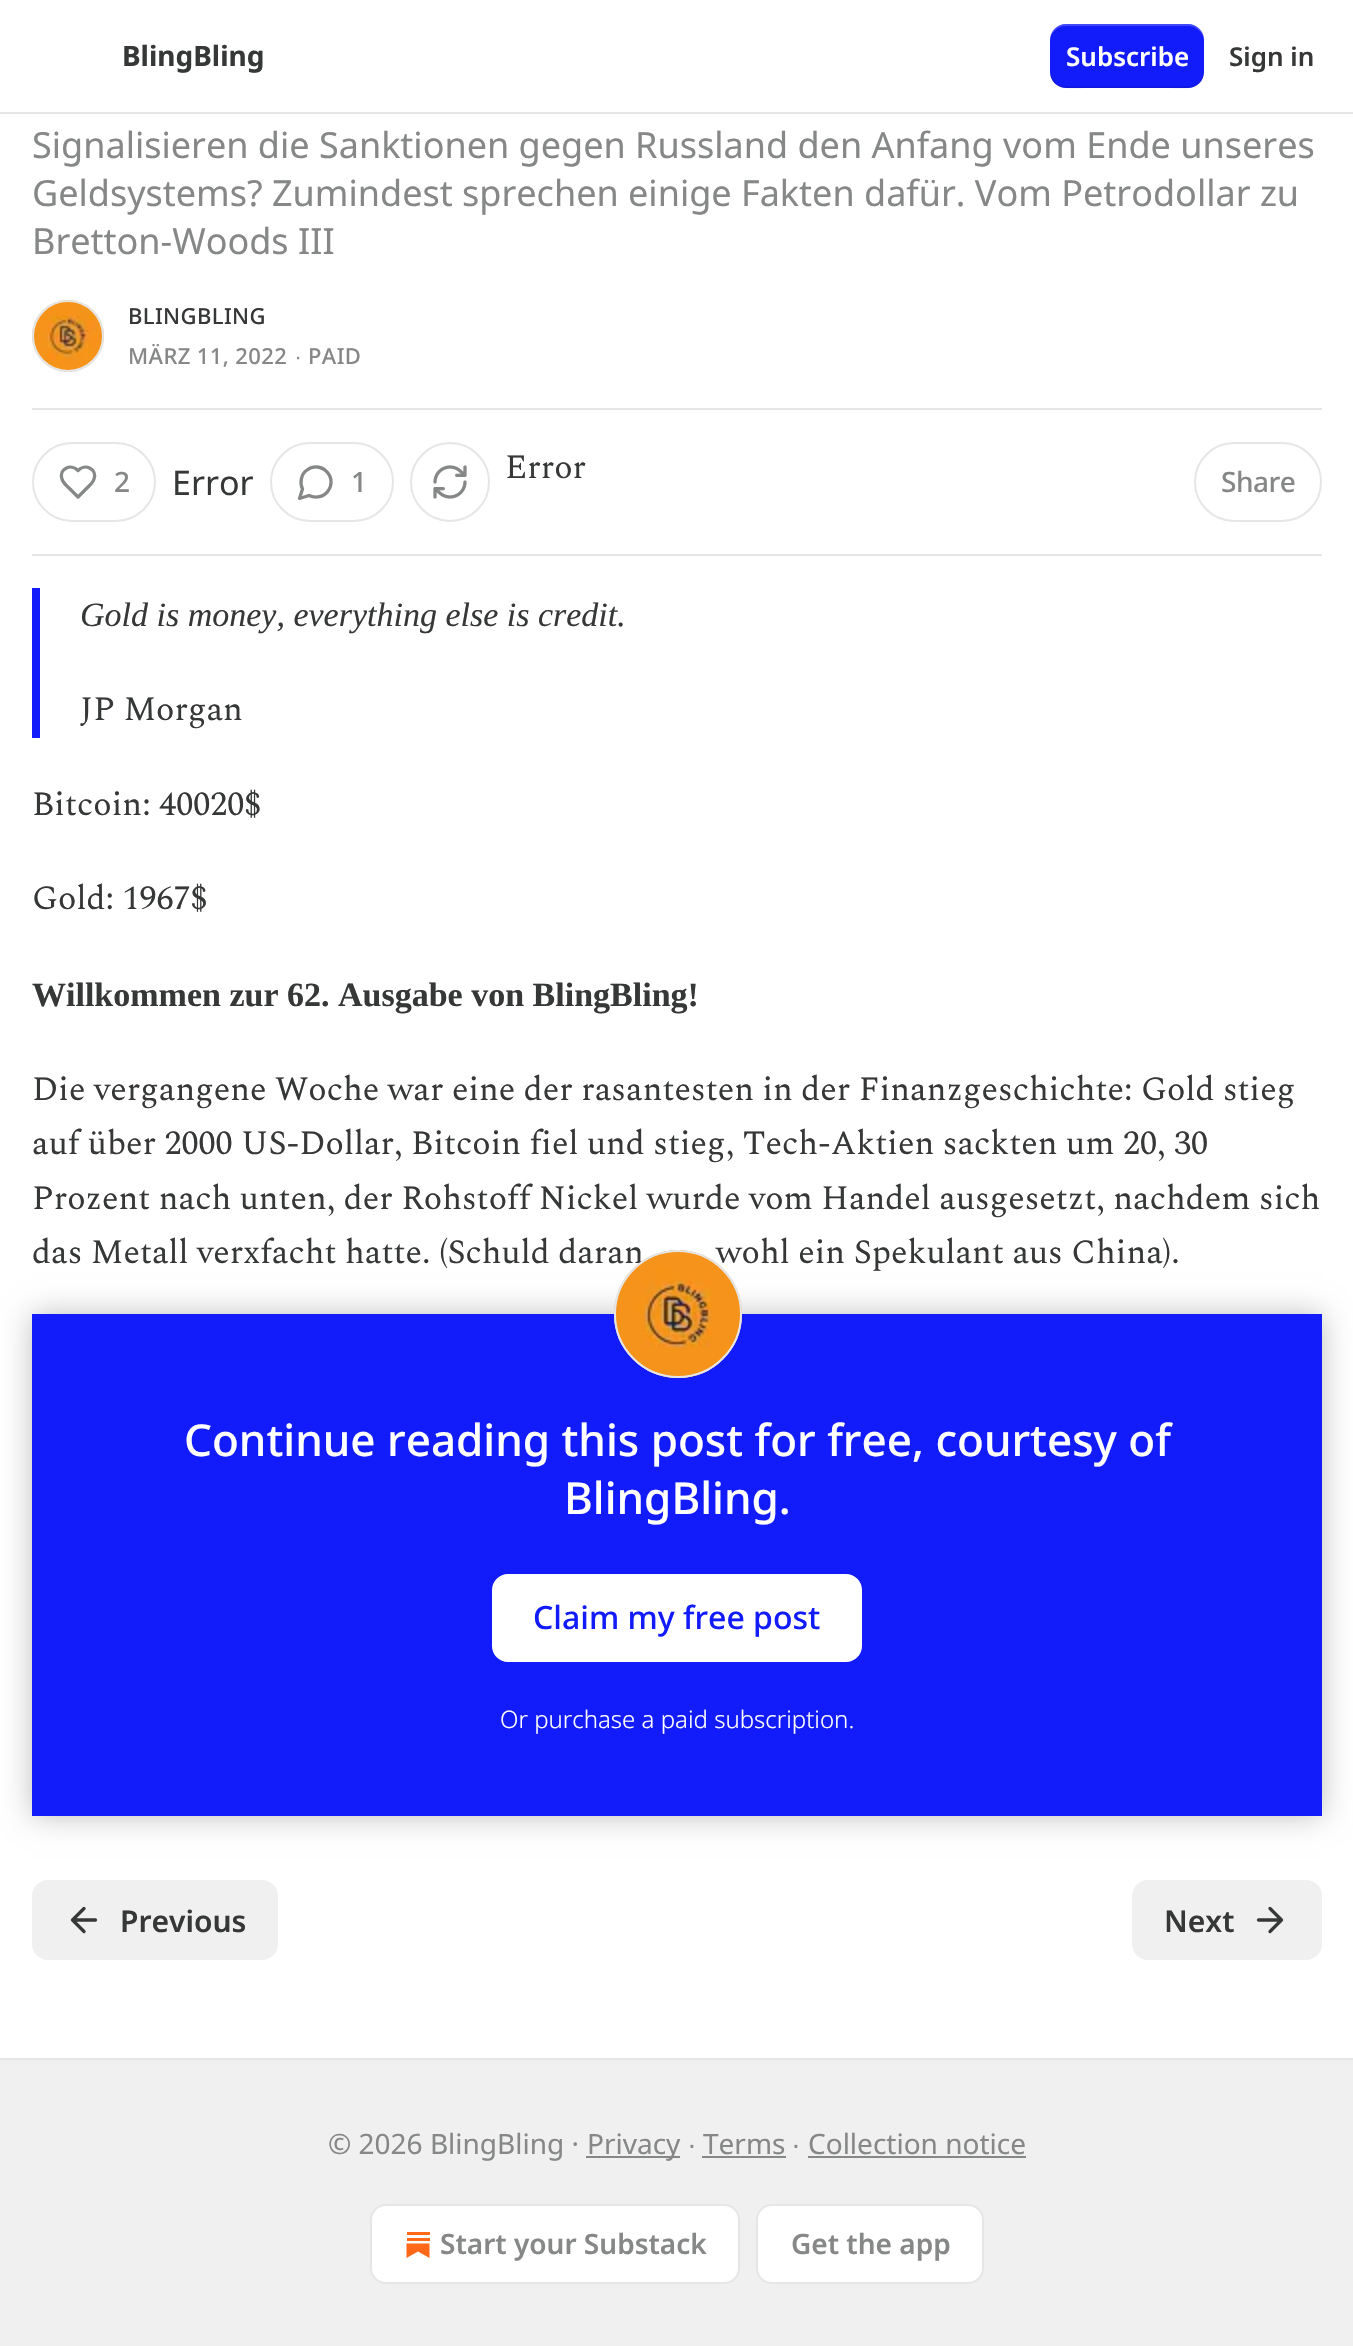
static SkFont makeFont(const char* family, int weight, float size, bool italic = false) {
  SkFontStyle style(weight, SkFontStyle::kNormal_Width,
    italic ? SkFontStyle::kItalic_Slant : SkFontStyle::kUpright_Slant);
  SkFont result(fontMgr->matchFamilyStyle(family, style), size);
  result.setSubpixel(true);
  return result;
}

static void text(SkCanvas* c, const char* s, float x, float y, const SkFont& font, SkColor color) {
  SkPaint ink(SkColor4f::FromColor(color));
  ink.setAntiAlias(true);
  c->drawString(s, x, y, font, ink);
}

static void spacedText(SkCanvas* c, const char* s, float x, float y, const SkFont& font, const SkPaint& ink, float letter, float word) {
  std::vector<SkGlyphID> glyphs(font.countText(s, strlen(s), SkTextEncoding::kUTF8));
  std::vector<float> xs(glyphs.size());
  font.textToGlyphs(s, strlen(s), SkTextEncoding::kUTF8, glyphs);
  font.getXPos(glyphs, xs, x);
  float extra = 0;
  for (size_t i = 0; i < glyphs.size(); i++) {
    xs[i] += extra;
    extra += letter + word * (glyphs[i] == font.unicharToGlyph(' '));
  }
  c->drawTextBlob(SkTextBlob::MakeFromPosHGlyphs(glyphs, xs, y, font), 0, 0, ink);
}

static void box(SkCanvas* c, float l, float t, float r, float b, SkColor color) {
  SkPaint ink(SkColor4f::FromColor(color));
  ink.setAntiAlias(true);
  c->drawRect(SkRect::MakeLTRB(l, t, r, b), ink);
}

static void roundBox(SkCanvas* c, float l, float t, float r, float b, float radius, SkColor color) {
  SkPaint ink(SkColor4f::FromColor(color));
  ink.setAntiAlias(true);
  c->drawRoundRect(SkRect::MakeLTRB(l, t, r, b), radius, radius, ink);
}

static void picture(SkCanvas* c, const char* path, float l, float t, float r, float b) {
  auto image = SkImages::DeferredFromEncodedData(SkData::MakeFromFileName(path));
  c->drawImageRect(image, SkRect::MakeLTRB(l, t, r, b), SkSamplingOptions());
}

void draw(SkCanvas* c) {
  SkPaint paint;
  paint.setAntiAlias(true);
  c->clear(0xffffffff);
  box(c, 0, 112, 1353, 114, 0xffe6e6e6);
  SkFont face1 = makeFont("Noto Sans", 700, 28);
  text(c, "BlingBling", 122, 66, face1, 0xff363737);
  roundBox(c, 1050, 24, 1204, 88, 16, 0xff121bfa);
  paint.setColor(0x1a000000);
  c->drawPath(SkPathBuilder().moveTo(1050, 70).cubicTo(1050, 92, 1070, 88, 1086, 88).lineTo(1168, 88).cubicTo(1184, 88, 1204, 92, 1204, 70).cubicTo(1204, 79, 1197, 86, 1188, 86).lineTo(1066, 86).cubicTo(1057, 86, 1050, 79, 1050, 70).close().detach(), paint);
  paint.setColor(0x33ffffff);
  c->drawPath(SkPathBuilder().moveTo(1066, 26).lineTo(1188, 26).cubicTo(1197, 26, 1204, 33, 1204, 42).cubicTo(1204, 20, 1184, 24, 1168, 24).lineTo(1086, 24).cubicTo(1070, 24, 1050, 20, 1050, 42).cubicTo(1050, 33, 1057, 26, 1066, 26).close().detach(), paint);
  SkFont face2 = makeFont("Noto Sans", 600, 26);
  text(c, "Subscribe", 1066, 66, face2, 0xffffffff);
  text(c, "Sign in", 1229, 66, face2, 0xff363737);
  SkFont face3 = makeFont("Noto Sans", 400, 36);
  text(c, "Signalisieren die Sanktionen gegen Russland den Anfang vom Ende unseres", 32, 158, face3, 0xff868787);
  text(c, "Geldsystems? Zumindest sprechen einige Fakten dafür. Vom Petrodollar zu", 32, 206, face3, 0xff868787);
  text(c, "Bretton-Woods III", 32, 254, face3, 0xff868787);
  paint.setStyle(SkPaint::kStroke_Style);
  paint.setStrokeWidth(2);
  paint.setColor(0xffe6e6e6);
  c->drawCircle(68, 336, 35, paint);
  picture(c, "img_01.png", 32, 300, 104, 372);
  c->drawCircle(68, 336, 35, paint);
  SkFont face4 = makeFont("Noto Sans", 500, 22);
  paint.setStyle(SkPaint::kFill_Style);
  paint.setColor(0xff363737);
  spacedText(c, "BLINGBLING", 128, 324, face4, paint, 0.4f, 0);
  paint.setColor(0xff868787);
  spacedText(c, "MÄRZ 11, 2022", 128, 364, face4, paint, 0.4f, 0);
  SkFont face5 = makeFont("Liberation Sans", 400, 22);
  spacedText(c, "∙", 295, 364, face5, paint, 0.4f, 0);
  spacedText(c, "PAID", 308, 364, face4, paint, 0.4f, 0);
  box(c, 32, 408, 1322, 410, 0xffe6e6e6);
  box(c, 32, 554, 1322, 556, 0xffe6e6e6);
  paint.setStyle(SkPaint::kStroke_Style);
  paint.setColor(0xffe6e6e6);
  c->drawCircle(450, 482, 39, paint);
  picture(c, "img_02.png", 433, 465, 467, 499);
  SkFont face6 = makeFont("Spectral", 400, 34);
  text(c, "Error", 505, 478, face6, 0xff363737);
  c->drawRoundRect(SkRect::MakeLTRB(33, 443, 155, 521), 39, 39, paint);
  paint.setStrokeWidth(3.3f);
  paint.setStrokeCap(SkPaint::kRound_Cap);
  paint.setStrokeJoin(SkPaint::kRound_Join);
  paint.setColor(0xff868787);
  c->drawPath(SkPathBuilder().moveTo(89.5f, 485.5f).cubicTo(91.5f, 483.5f, 93.5f, 481.5f, 94, 479).cubicTo(97.5f, 469, 85, 463, 78, 470.5f).cubicTo(71, 463, 58.5f, 469, 62, 479).cubicTo(63, 483, 67, 486, 70, 489).lineTo(78, 497).close().detach(), paint);
  SkFont face7 = makeFont("Noto Sans", 500, 28);
  paint.setStyle(SkPaint::kFill_Style);
  spacedText(c, "2", 114, 492, face7, paint, -0.5f, 0);
  SkFont face8 = makeFont("Noto Sans", 400, 34);
  text(c, "Error", 172, 495, face8, 0xff363737);
  paint.setStyle(SkPaint::kStroke_Style);
  paint.setStrokeWidth(2);
  paint.setStrokeCap(SkPaint::kButt_Cap);
  paint.setStrokeJoin(SkPaint::kMiter_Join);
  paint.setColor(0xffe6e6e6);
  c->drawRoundRect(SkRect::MakeLTRB(271, 443, 393, 521), 39, 39, paint);
  paint.setStrokeWidth(3.3f);
  paint.setStrokeCap(SkPaint::kRound_Cap);
  paint.setStrokeJoin(SkPaint::kRound_Join);
  paint.setColor(0xff868787);
  c->drawPath(SkPathBuilder().moveTo(309, 495.5f).cubicTo(315.5f, 498.5f, 324, 497, 328, 491).cubicTo(332.5f, 485, 332, 476.5f, 326.5f, 471.5f).cubicTo(321.5f, 466, 313, 465.5f, 307, 470).cubicTo(301, 474, 299.5f, 482.5f, 302.5f, 489).lineTo(299.5f, 498.5f).close().detach(), paint);
  paint.setStyle(SkPaint::kFill_Style);
  spacedText(c, "1", 351, 492, face7, paint, -0.5f, 0);
  paint.setStyle(SkPaint::kStroke_Style);
  paint.setStrokeWidth(2);
  paint.setStrokeCap(SkPaint::kButt_Cap);
  paint.setStrokeJoin(SkPaint::kMiter_Join);
  paint.setColor(0xffe6e6e6);
  c->drawRoundRect(SkRect::MakeLTRB(1195, 443, 1321, 521), 39, 39, paint);
  paint.setStyle(SkPaint::kFill_Style);
  paint.setColor(0xff868787);
  spacedText(c, "Share", 1221, 492, face7, paint, -0.5f, 0);
  box(c, 32, 588, 40, 738, 0xff121bfa);
  SkFont face9 = makeFont("Liberation Serif", 400, 34, true);
  text(c, "Gold is money, everything else is credit.", 80, 626, face9, 0xff363737);
  text(c, "JP Morgan", 80, 720, face6, 0xff363737);
  text(c, "Bitcoin: 40020$", 32, 815, face6, 0xff363737);
  text(c, "Gold: 1967$", 32, 909, face6, 0xff363737);
  SkFont face10 = makeFont("Liberation Serif", 700, 34);
  text(c, "Willkommen zur 62. Ausgabe von BlingBling!", 32, 1006, face10, 0xff363737);
  text(c, "Die vergangene Woche war eine der rasantesten in der Finanzgeschichte: Gold stieg", 32, 1100, face6, 0xff363737);
  text(c, "auf über 2000 US-Dollar, Bitcoin fiel und stieg, Tech-Aktien sackten um 20, 30", 32, 1154, face6, 0xff363737);
  text(c, "Prozent nach unten, der Rohstoff Nickel wurde vom Handel ausgesetzt, nachdem sich", 32, 1209, face6, 0xff363737);
  text(c, "das Metall verxfacht hatte. (Schuld daran", 32, 1263, face6, 0xff363737);
  text(c, "wohl ein Spekulant aus China).", 716, 1263, face6, 0xff363737);
  box(c, 32, 1314, 1322, 1816, 0xff121bfa);
  paint.setColor(0xffffffff);
  c->drawRoundRect(SkRect::MakeLTRB(493, 1575, 861, 1661), 15, 15, paint);
  paint.setStyle(SkPaint::kStroke_Style);
  c->drawRoundRect(SkRect::MakeLTRB(493, 1575, 861, 1661), 15, 15, paint);
  c->save();
  c->clipPath(SkPathBuilder(SkPathFillType::kEvenOdd).moveTo(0, 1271).lineTo(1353, 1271).lineTo(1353, 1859).lineTo(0, 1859).close().moveTo(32, 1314).lineTo(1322, 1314).lineTo(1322, 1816).lineTo(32, 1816).close().detach(), true);
  paint.setStyle(SkPaint::kFill_Style);
  paint.setColor(0x40000000);
  paint.setMaskFilter(SkMaskFilter::MakeBlur(kNormal_SkBlurStyle, 14));
  c->drawRect(SkRect::MakeLTRB(32, 1314, 1322, 1816), paint);
  paint.setMaskFilter(nullptr);
  c->restore();
  paint.setStyle(SkPaint::kStroke_Style);
  paint.setColor(0xffe6e6e6);
  c->drawCircle(678, 1314, 63, paint);
  picture(c, "img_03.png", 614, 1250, 742, 1378);
  c->drawCircle(678, 1314, 63, paint);
  SkFont face11 = makeFont("Noto Sans", 500, 44);
  text(c, "Continue reading this post for free, courtesy of", 184, 1456, face11, 0xffffffff);
  text(c, "BlingBling.", 564, 1514, face11, 0xffffffff);
  SkFont face12 = makeFont("Noto Sans", 500, 32);
  text(c, "Claim my free post", 533, 1629, face12, 0xff121bfa);
  SkFont face13 = makeFont("Noto Sans", 300, 24);
  text(c, "Or purchase a paid subscription.", 500, 1728, face13, 0xffffffff);
  roundBox(c, 32, 1880, 278, 1960, 16, 0xfff0f0f0);
  paint.setStrokeWidth(3.3f);
  paint.setStrokeCap(SkPaint::kRound_Cap);
  paint.setStrokeJoin(SkPaint::kRound_Join);
  paint.setColor(0xff363737);
  c->drawPath(SkPathBuilder().moveTo(84, 1931.5f).lineTo(72.5f, 1920).lineTo(84, 1908.5f).moveTo(95.5f, 1920).lineTo(72.5f, 1920).detach(), paint);
  SkFont face14 = makeFont("Noto Sans", 600, 30);
  text(c, "Previous", 120, 1932, face14, 0xff363737);
  roundBox(c, 1132, 1880, 1322, 1960, 16, 0xfff0f0f0);
  text(c, "Next", 1164, 1932, face14, 0xff363737);
  c->drawPath(SkPathBuilder().moveTo(1258.5f, 1920).lineTo(1281.5f, 1920).moveTo(1270, 1908.5f).lineTo(1281.5f, 1920).lineTo(1270, 1931.5f).detach(), paint);
  box(c, 0, 2060, 1353, 2346, 0xfff0f0f0);
  box(c, 0, 2058, 1353, 2060, 0xffe6e6e6);
  SkFont face15 = makeFont("Noto Sans", 400, 28);
  text(c, "© 2026 BlingBling ·", 328, 2154, face15, 0xff868787);
  box(c, 586, 2156, 680, 2158, 0xff868787);
  text(c, "Privacy", 587, 2154, face15, 0xff868787);
  SkFont face16 = makeFont("Liberation Sans", 400, 28);
  text(c, "∙", 688, 2154, face16, 0xff868787);
  text(c, "Terms", 703, 2154, face15, 0xff868787);
  box(c, 702, 2156, 786, 2158, 0xff868787);
  text(c, "∙", 792, 2154, face16, 0xff868787);
  text(c, "Collection notice", 808, 2154, face15, 0xff868787);
  box(c, 808, 2156, 1026, 2158, 0xff868787);
  paint.setStyle(SkPaint::kFill_Style);
  paint.setColor(0xffffffff);
  c->drawRoundRect(SkRect::MakeLTRB(371, 2205, 739, 2283), 15, 15, paint);
  paint.setStyle(SkPaint::kStroke_Style);
  paint.setStrokeWidth(2);
  paint.setStrokeCap(SkPaint::kButt_Cap);
  paint.setStrokeJoin(SkPaint::kMiter_Join);
  paint.setColor(0xffe6e6e6);
  c->drawRoundRect(SkRect::MakeLTRB(371, 2205, 739, 2283), 15, 15, paint);
  box(c, 407, 2238, 430, 2241, 0xffff6719);
  paint.setStyle(SkPaint::kFill_Style);
  paint.setColor(0xffff6719);
  c->drawPath(SkPathBuilder().moveTo(406.5f, 2243.5f).lineTo(406.5f, 2258).lineTo(418, 2251.5f).lineTo(429.5f, 2258).lineTo(429.5f, 2243.5f).close().detach(), paint);
  box(c, 407, 2232, 430, 2235, 0xffff6719);
  SkFont face17 = makeFont("Noto Sans", 600, 28);
  text(c, "Start your Substack", 440, 2254, face17, 0xff868787);
  paint.setColor(0xffffffff);
  c->drawRoundRect(SkRect::MakeLTRB(757, 2205, 983, 2283), 15, 15, paint);
  paint.setStyle(SkPaint::kStroke_Style);
  paint.setColor(0xffe6e6e6);
  c->drawRoundRect(SkRect::MakeLTRB(757, 2205, 983, 2283), 15, 15, paint);
  text(c, "Get the app", 791, 2254, face17, 0xff868787);
}
